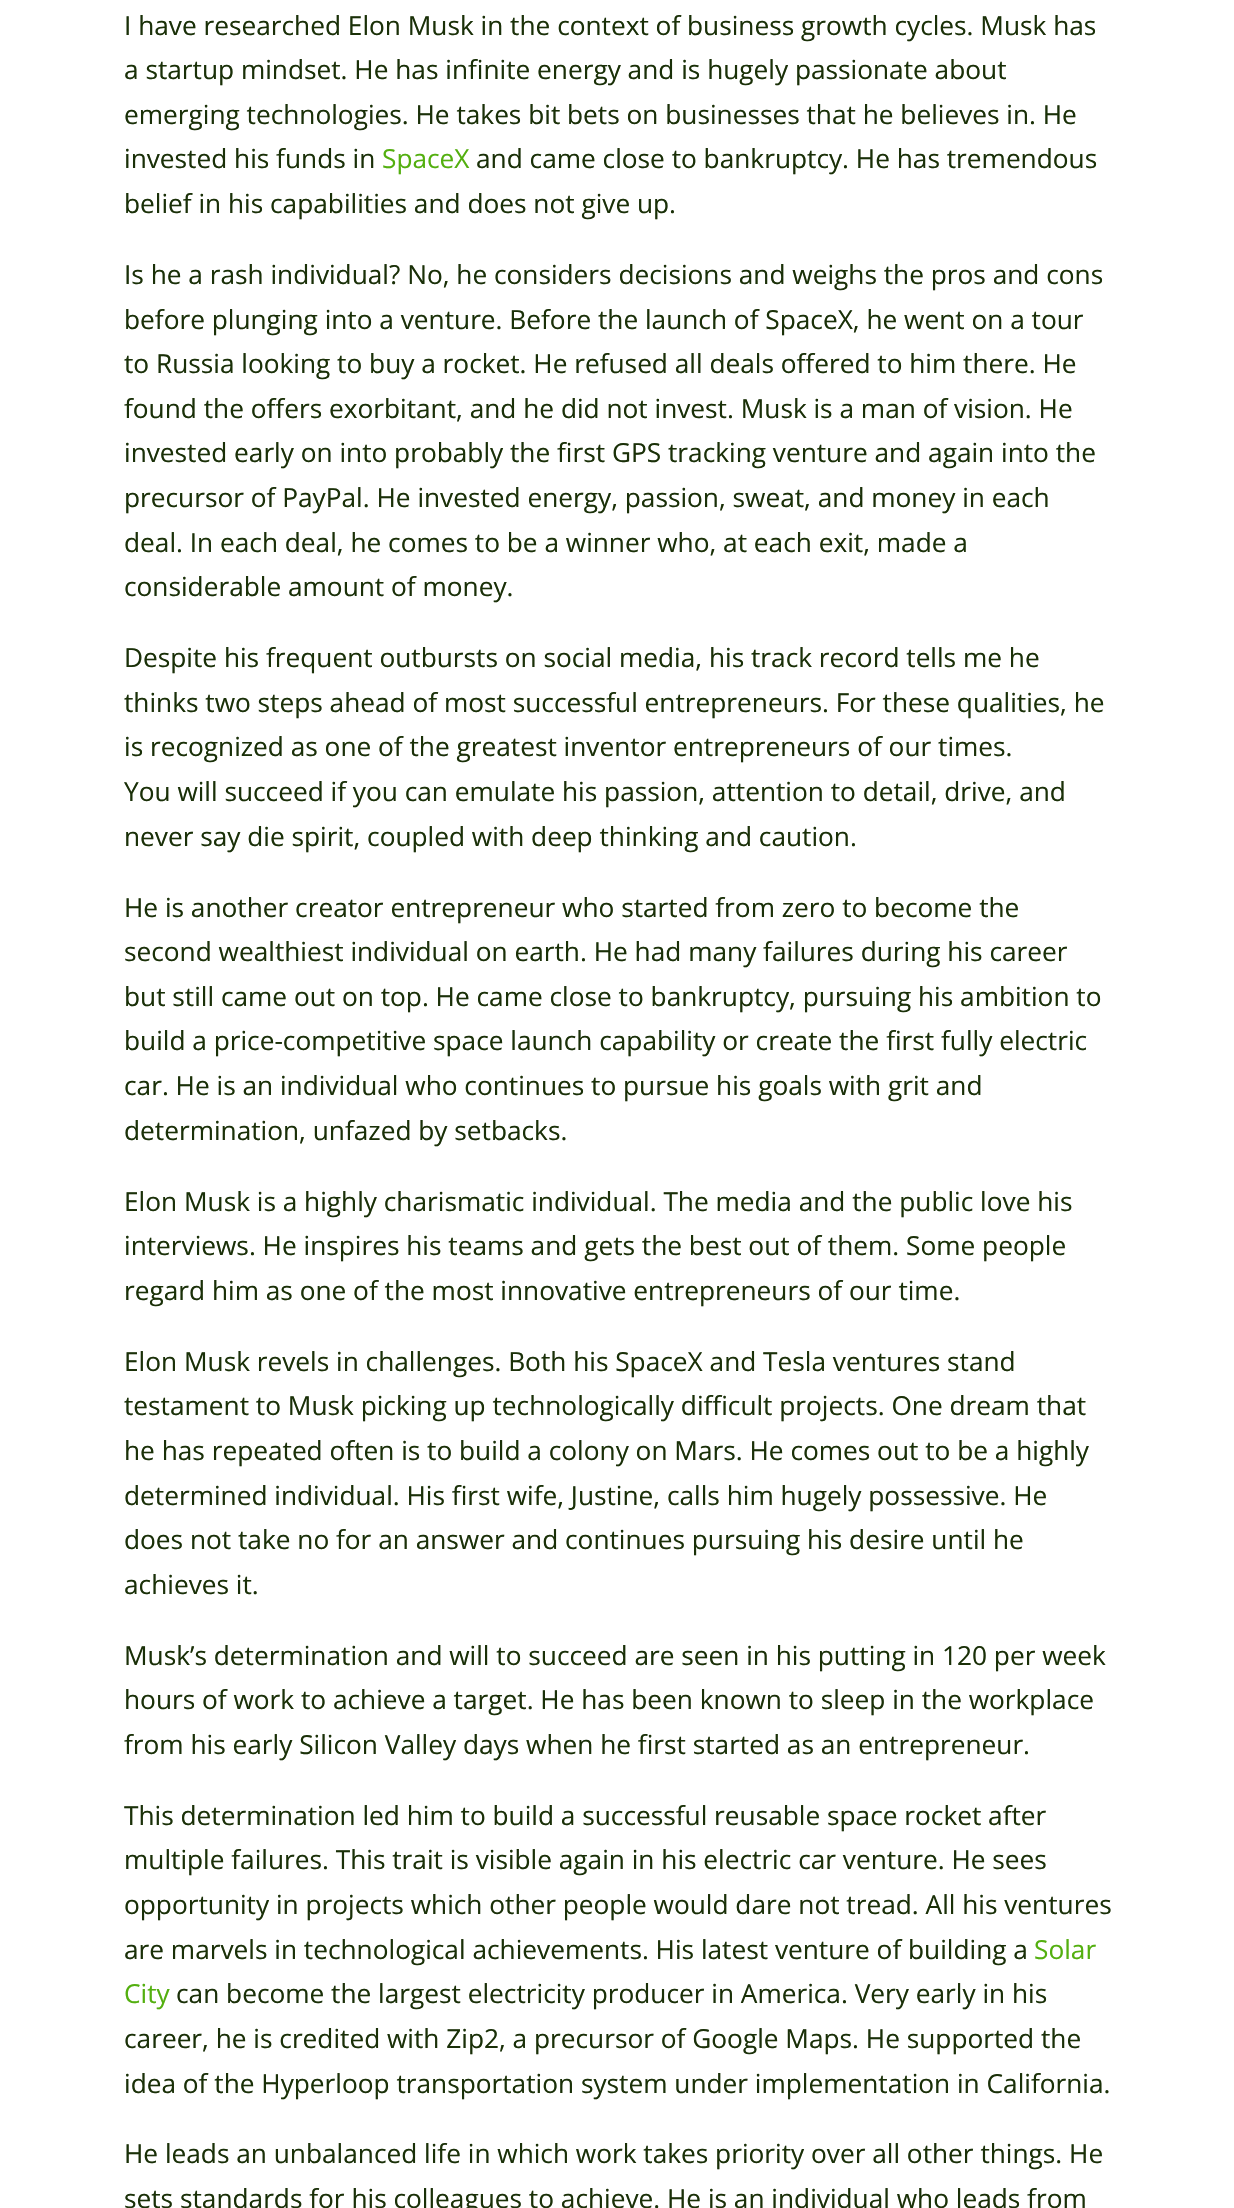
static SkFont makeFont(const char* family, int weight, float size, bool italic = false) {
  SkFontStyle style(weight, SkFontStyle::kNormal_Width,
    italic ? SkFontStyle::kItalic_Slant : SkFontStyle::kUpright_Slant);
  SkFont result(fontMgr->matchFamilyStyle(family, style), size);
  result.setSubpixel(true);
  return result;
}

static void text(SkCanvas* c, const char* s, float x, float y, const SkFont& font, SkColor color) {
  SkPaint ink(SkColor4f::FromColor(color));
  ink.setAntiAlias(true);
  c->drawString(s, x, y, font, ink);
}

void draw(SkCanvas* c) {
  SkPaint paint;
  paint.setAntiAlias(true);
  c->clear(0xffffffff);
  SkFont face1 = makeFont("Open Sans", 400, 26.25f);
  text(c, "I have researched Elon Musk in the context of business growth cycles. Musk has", 124, 35, face1, 0xff1a3008);
  text(c, "a startup mindset. He has infinite energy and is hugely passionate about", 124, 79, face1, 0xff1a3008);
  text(c, "emerging technologies. He takes bit bets on businesses that he believes in. He", 124, 124, face1, 0xff1a3008);
  text(c, "invested his funds in", 124, 168, face1, 0xff1a3008);
  text(c, "SpaceX", 382, 168, face1, 0xff53af0f);
  text(c, "and came close to bankruptcy. He has tremendous", 476, 168, face1, 0xff1a3008);
  text(c, "belief in his capabilities and does not give up.", 124, 213, face1, 0xff1a3008);
  text(c, "Is he a rash individual? No, he considers decisions and weighs the pros and cons", 124, 284, face1, 0xff1a3008);
  text(c, "before plunging into a venture. Before the launch of SpaceX, he went on a tour", 124, 329, face1, 0xff1a3008);
  text(c, "to Russia looking to buy a rocket. He refused all deals offered to him there. He", 124, 373, face1, 0xff1a3008);
  text(c, "found the offers exorbitant, and he did not invest. Musk is a man of vision. He", 124, 418, face1, 0xff1a3008);
  text(c, "invested early on into probably the first GPS tracking venture and again into the", 124, 462, face1, 0xff1a3008);
  text(c, "precursor of PayPal. He invested energy, passion, sweat, and money in each", 124, 507, face1, 0xff1a3008);
  text(c, "deal. In each deal, he comes to be a winner who, at each exit, made a", 124, 552, face1, 0xff1a3008);
  text(c, "considerable amount of money.", 124, 596, face1, 0xff1a3008);
  text(c, "Despite his frequent outbursts on social media, his track record tells me he", 124, 667, face1, 0xff1a3008);
  text(c, "thinks two steps ahead of most successful entrepreneurs. For these qualities, he", 124, 712, face1, 0xff1a3008);
  text(c, "is recognized as one of the greatest inventor entrepreneurs of our times.", 124, 756, face1, 0xff1a3008);
  text(c, "You will succeed if you can emulate his passion, attention to detail, drive, and", 124, 801, face1, 0xff1a3008);
  text(c, "never say die spirit, coupled with deep thinking and caution.", 124, 846, face1, 0xff1a3008);
  text(c, "He is another creator entrepreneur who started from zero to become the", 124, 917, face1, 0xff1a3008);
  text(c, "second wealthiest individual on earth. He had many failures during his career", 124, 961, face1, 0xff1a3008);
  text(c, "but still came out on top. He came close to bankruptcy, pursuing his ambition to", 124, 1006, face1, 0xff1a3008);
  text(c, "build a price-competitive space launch capability or create the first fully electric", 124, 1050, face1, 0xff1a3008);
  text(c, "car. He is an individual who continues to pursue his goals with grit and", 124, 1095, face1, 0xff1a3008);
  text(c, "determination, unfazed by setbacks.", 124, 1140, face1, 0xff1a3008);
  text(c, "Elon Musk is a highly charismatic individual. The media and the public love his", 124, 1211, face1, 0xff1a3008);
  text(c, "interviews. He inspires his teams and gets the best out of them. Some people", 124, 1255, face1, 0xff1a3008);
  text(c, "regard him as one of the most innovative entrepreneurs of our time.", 124, 1300, face1, 0xff1a3008);
  text(c, "Elon Musk revels in challenges. Both his SpaceX and Tesla ventures stand", 124, 1371, face1, 0xff1a3008);
  text(c, "testament to Musk picking up technologically difficult projects. One dream that", 124, 1415, face1, 0xff1a3008);
  text(c, "he has repeated often is to build a colony on Mars. He comes out to be a highly", 124, 1460, face1, 0xff1a3008);
  text(c, "determined individual. His first wife, Justine, calls him hugely possessive. He", 124, 1505, face1, 0xff1a3008);
  text(c, "does not take no for an answer and continues pursuing his desire until he", 124, 1549, face1, 0xff1a3008);
  text(c, "achieves it.", 124, 1594, face1, 0xff1a3008);
  text(c, "Musk’s determination and will to succeed are seen in his putting in 120 per week", 124, 1665, face1, 0xff1a3008);
  text(c, "hours of work to achieve a target. He has been known to sleep in the workplace", 124, 1709, face1, 0xff1a3008);
  text(c, "from his early Silicon Valley days when he first started as an entrepreneur.", 124, 1754, face1, 0xff1a3008);
  text(c, "This determination led him to build a successful reusable space rocket after", 124, 1825, face1, 0xff1a3008);
  text(c, "multiple failures. This trait is visible again in his electric car venture. He sees", 124, 1869, face1, 0xff1a3008);
  text(c, "opportunity in projects which other people would dare not tread. All his ventures", 124, 1914, face1, 0xff1a3008);
  text(c, "are marvels in technological achievements. His latest venture of building a", 124, 1959, face1, 0xff1a3008);
  text(c, "Solar", 1034, 1959, face1, 0xff53af0f);
  text(c, "City", 124, 2003, face1, 0xff53af0f);
  text(c, "can become the largest electricity producer in America. Very early in his", 176, 2003, face1, 0xff1a3008);
  text(c, "career, he is credited with Zip2, a precursor of Google Maps. He supported the", 124, 2048, face1, 0xff1a3008);
  text(c, "idea of the Hyperloop transportation system under implementation in California.", 124, 2093, face1, 0xff1a3008);
  text(c, "He leads an unbalanced life in which work takes priority over all other things. He", 124, 2163, face1, 0xff1a3008);
  text(c, "sets standards for his colleagues to achieve. He is an individual who leads from", 124, 2208, face1, 0xff1a3008);
}
